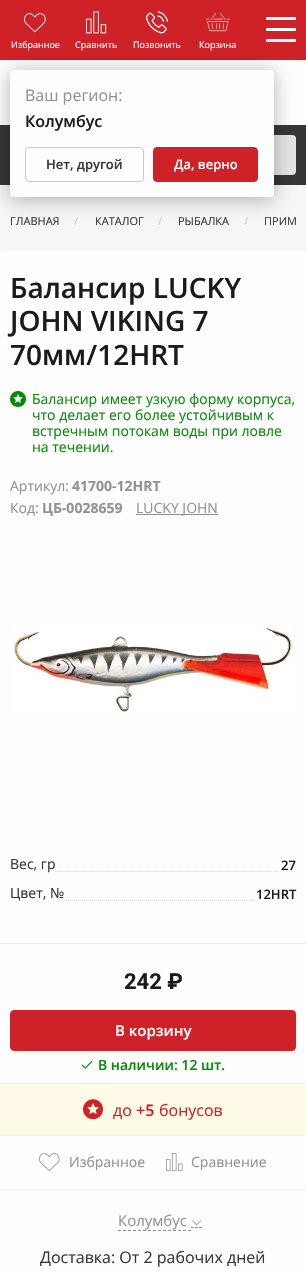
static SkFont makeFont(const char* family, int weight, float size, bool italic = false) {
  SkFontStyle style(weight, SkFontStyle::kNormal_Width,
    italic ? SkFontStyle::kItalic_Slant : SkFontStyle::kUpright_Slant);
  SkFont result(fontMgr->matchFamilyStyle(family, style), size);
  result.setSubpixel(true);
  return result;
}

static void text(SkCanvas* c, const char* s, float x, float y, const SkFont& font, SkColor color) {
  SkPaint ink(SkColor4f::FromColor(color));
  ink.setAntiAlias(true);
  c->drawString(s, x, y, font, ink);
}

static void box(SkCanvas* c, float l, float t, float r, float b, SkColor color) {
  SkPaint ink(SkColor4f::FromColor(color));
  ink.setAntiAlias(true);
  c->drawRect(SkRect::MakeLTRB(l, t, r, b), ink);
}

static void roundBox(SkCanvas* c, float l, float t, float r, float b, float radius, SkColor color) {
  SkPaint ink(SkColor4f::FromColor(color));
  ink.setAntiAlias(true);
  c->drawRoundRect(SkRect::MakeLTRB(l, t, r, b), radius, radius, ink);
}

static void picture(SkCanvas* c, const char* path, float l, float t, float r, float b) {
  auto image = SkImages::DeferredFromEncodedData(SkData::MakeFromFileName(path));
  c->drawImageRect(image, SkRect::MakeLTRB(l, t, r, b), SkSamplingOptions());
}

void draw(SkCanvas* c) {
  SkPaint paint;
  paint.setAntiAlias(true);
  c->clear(0xfff6f6f6);
  box(c, 0, 0, 306, 60, 0xffcf2128);
  box(c, 266, 39, 296, 42, 0xfffefefe);
  box(c, 266, 28, 296, 31, 0xfffefefe);
  box(c, 266, 17, 296, 20, 0xfffefefe);
  picture(c, "img_01.png", 24, 13, 46, 33);
  SkFont face1 = makeFont("Open Sans", 400, 9);
  text(c, "Избранное", 11, 48, face1, 0xfffefefe);
  picture(c, "img_02.png", 86, 11, 107, 34);
  text(c, "Сравнить", 75, 48, face1, 0xfffefefe);
  picture(c, "img_03.png", 146, 11, 168, 34);
  text(c, "Позвонить", 133, 48, face1, 0xfffefefe);
  picture(c, "img_04.png", 206, 13, 230, 32);
  text(c, "Корзина", 199, 48, face1, 0xfffefefe);
  box(c, 0, 60, 306, 125, 0xfffefefe);
  box(c, 0, 125, 306, 185, 0xff363636);
  roundBox(c, 10, 135, 296, 175, 4, 0xffe5e5e5);
  SkFont face2 = makeFont("Open Sans", 400, 11);
  text(c, "ГЛАВНАЯ", 10, 225, face2, 0xff363636);
  text(c, "/", 74, 225, face2, 0xffcacaca);
  text(c, "КАТАЛОГ", 95, 225, face2, 0xff363636);
  text(c, "/", 158, 225, face2, 0xffcacaca);
  text(c, "РЫБАЛКА", 178, 225, face2, 0xff363636);
  text(c, "/", 244, 225, face2, 0xffcacaca);
  c->save();
  c->clipRect(SkRect::MakeLTRB(10, 207, 296, 243));
  text(c, "ПРИМ", 264, 225, face2, 0xff363636);
  c->restore();
  roundBox(c, 0, 251, 306, 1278, 2, 0xfffefefe);
  SkFont face3 = makeFont("Open Sans", 600, 28);
  text(c, "Балансир LUCKY", 10, 298, face3, 0xff1b1b1b);
  text(c, "JOHN VIKING 7", 10, 331, face3, 0xff1b1b1b);
  text(c, "70мм/12HRT", 10, 365, face3, 0xff1b1b1b);
  picture(c, "img_05.png", 10, 391, 26, 407);
  SkFont face4 = makeFont("Open Sans", 400, 14);
  text(c, "Балансир имеет узкую форму корпуса,", 32, 404, face4, 0xff078b07);
  text(c, "что делает его более устойчивым к", 32, 420, face4, 0xff078b07);
  text(c, "встречным потокам воды при ловле", 32, 436, face4, 0xff078b07);
  text(c, "на течении.", 32, 452, face4, 0xff078b07);
  text(c, "Артикул:", 10, 491, face4, 0xff929292);
  SkFont face5 = makeFont("Open Sans", 700, 14);
  text(c, "41700-12HRT", 72, 491, face5, 0xff929292);
  text(c, "Код:", 10, 513, face4, 0xff929292);
  text(c, "ЦБ-0028659", 42, 513, face5, 0xff929292);
  box(c, 136, 514, 218, 515, 0xff929292);
  text(c, "LUCKY JOHN", 136, 513, face4, 0xff929292);
  picture(c, "img_06.png", 13, 626, 293, 713);
  c->save();
  c->clipRect(SkRect::MakeLTRB(10, 855, 296, 874));
  paint.setStyle(SkPaint::kStroke_Style);
  paint.setStrokeWidth(1);
  paint.setColor(0xffdcdcdc);
  paint.setPathEffect(SkDashPathEffect::Make({{1, 1}}, 0));
  c->drawPath(SkPathBuilder().moveTo(-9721, 871.5f).lineTo(279, 871.5f).detach(), paint);
  paint.setPathEffect(nullptr);
  c->restore();
  box(c, 11, 871, 54, 872, 0xfffefefe);
  text(c, "Вес, гр", 10, 869, face4, 0xff363636);
  SkFont face6 = makeFont("Open Sans", 600, 13);
  text(c, "27", 281, 870, face6, 0xff1b1b1b);
  c->save();
  c->clipRect(SkRect::MakeLTRB(10, 884, 296, 903));
  paint.setPathEffect(SkDashPathEffect::Make({{1, 1}}, 0));
  c->drawPath(SkPathBuilder().moveTo(-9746, 900.5f).lineTo(254, 900.5f).detach(), paint);
  paint.setPathEffect(nullptr);
  c->restore();
  box(c, 10, 900, 63, 901, 0xfffefefe);
  text(c, "Цвет, №", 10, 898, face4, 0xff363636);
  text(c, "12HRT", 256, 899, face6, 0xff1b1b1b);
  box(c, 0, 943, 306, 944, 0xffece6e6);
  SkFont face7 = makeFont("Roboto", 700, 22);
  text(c, "242 ₽", 124, 989, face7, 0xff1b1b1b);
  paint.setStyle(SkPaint::kFill_Style);
  paint.setColor(0xffcf2128);
  c->drawRoundRect(SkRect::MakeLTRB(10.5f, 1010.5f, 295.5f, 1050.5f), 3.5f, 3.5f, paint);
  paint.setStyle(SkPaint::kStroke_Style);
  c->drawRoundRect(SkRect::MakeLTRB(10.5f, 1010.5f, 295.5f, 1050.5f), 3.5f, 3.5f, paint);
  SkFont face8 = makeFont("Open Sans", 600, 15);
  text(c, "В корзину", 115, 1036, face8, 0xfffefefe);
  picture(c, "img_07.png", 81, 1061, 93, 1069);
  SkFont face9 = makeFont("Open Sans", 600, 14);
  text(c, "В наличии: 12 шт.", 98, 1070, face9, 0xff078b07);
  box(c, 0, 1084, 306, 1135, 0xfffffbe7);
  box(c, 0, 1083, 306, 1084, 0xffefecec);
  picture(c, "img_08.png", 83, 1099, 103, 1120);
  SkFont face10 = makeFont("Open Sans", 400, 16);
  text(c, "до", 113, 1116, face10, 0xffcf2128);
  SkFont face11 = makeFont("Open Sans", 600, 16);
  text(c, "+5", 136, 1116, face11, 0xffcf2128);
  text(c, "бонусов", 159, 1116, face10, 0xffcf2128);
  box(c, 0, 1135, 306, 1136, 0xffefecec);
  box(c, 0, 1189, 306, 1190, 0xffefecec);
  picture(c, "img_09.png", 39, 1153, 60, 1172);
  text(c, "Избранное", 69, 1167, face4, 0xff929292);
  picture(c, "img_10.png", 166, 1153, 183, 1172);
  text(c, "Сравнение", 191, 1167, face4, 0xff929292);
  paint.setColor(0xff929292);
  paint.setPathEffect(SkDashPathEffect::Make({{3, 2}}, 0));
  c->drawPath(SkPathBuilder().moveTo(118, 1230.5f).lineTo(191, 1230.5f).detach(), paint);
  paint.setPathEffect(nullptr);
  c->drawPath(SkPathBuilder().moveTo(191, 1227.5f).lineTo(194, 1227.5f).moveTo(195, 1227.5f).lineTo(198, 1227.5f).moveTo(199, 1227.5f).lineTo(202, 1227.5f).detach(), paint);
  SkFont face12 = makeFont("Open Sans", 400, 15);
  text(c, "Колумбус", 118, 1226, face12, 0xff929292);
  picture(c, "img_11.png", 192, 1220, 201, 1226);
  text(c, "Доставка: От 2 рабочих дней", 40, 1263, face10, 0xff363636);
  paint.setStyle(SkPaint::kFill_Style);
  paint.setColor(0x4d000000);
  paint.setMaskFilter(SkMaskFilter::MakeBlur(kNormal_SkBlurStyle, 10));
  c->drawRoundRect(SkRect::MakeLTRB(10, 72, 274, 199), 4, 4, paint);
  paint.setMaskFilter(nullptr);
  roundBox(c, 10, 70, 274, 197, 4, 0xfffefefe);
  text(c, "Ваш регион:", 25, 101, face10, 0xff929292);
  text(c, "Колумбус", 25, 127, face11, 0xff1b1b1b);
  paint.setStyle(SkPaint::kStroke_Style);
  paint.setColor(0xffcec7c7);
  c->drawRoundRect(SkRect::MakeLTRB(25.5f, 147.5f, 143.5f, 181.5f), 3.5f, 3.5f, paint);
  text(c, "Нет, другой", 46, 169, face6, 0xff363636);
  paint.setStyle(SkPaint::kFill_Style);
  paint.setColor(0xffcf2128);
  c->drawRoundRect(SkRect::MakeLTRB(153.5f, 147.5f, 257.5f, 181.5f), 3.5f, 3.5f, paint);
  paint.setStyle(SkPaint::kStroke_Style);
  c->drawRoundRect(SkRect::MakeLTRB(153.5f, 147.5f, 257.5f, 181.5f), 3.5f, 3.5f, paint);
  text(c, "Да, верно", 174, 169, face6, 0xfffefefe);
}
